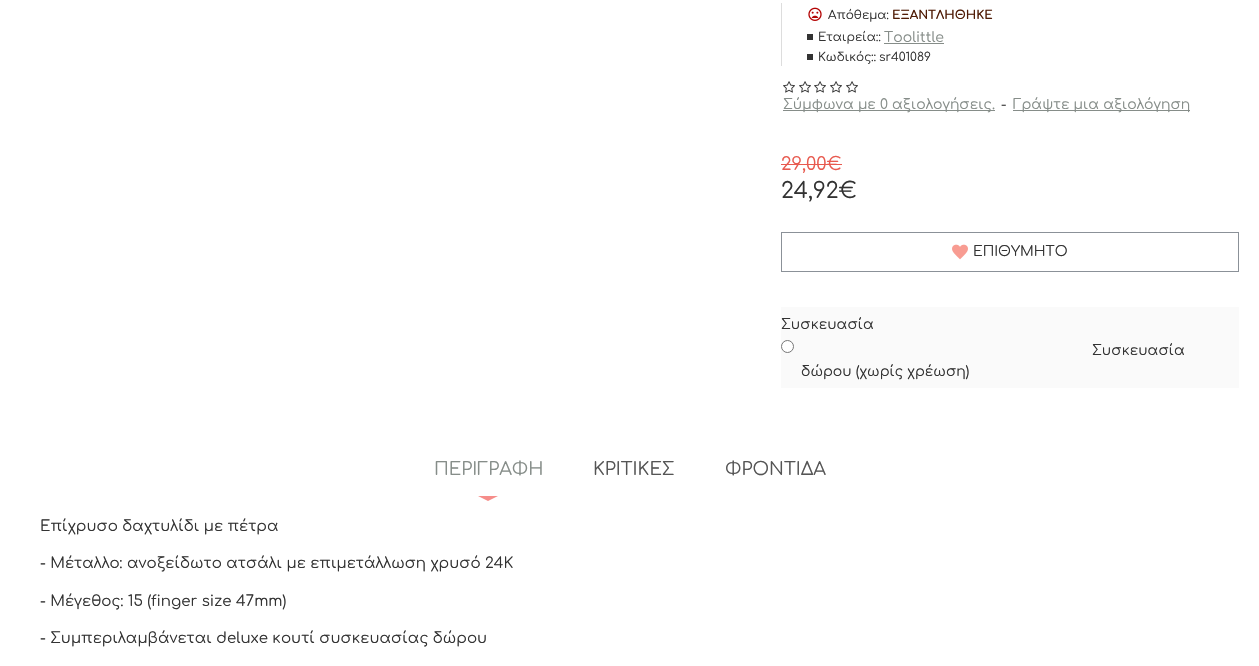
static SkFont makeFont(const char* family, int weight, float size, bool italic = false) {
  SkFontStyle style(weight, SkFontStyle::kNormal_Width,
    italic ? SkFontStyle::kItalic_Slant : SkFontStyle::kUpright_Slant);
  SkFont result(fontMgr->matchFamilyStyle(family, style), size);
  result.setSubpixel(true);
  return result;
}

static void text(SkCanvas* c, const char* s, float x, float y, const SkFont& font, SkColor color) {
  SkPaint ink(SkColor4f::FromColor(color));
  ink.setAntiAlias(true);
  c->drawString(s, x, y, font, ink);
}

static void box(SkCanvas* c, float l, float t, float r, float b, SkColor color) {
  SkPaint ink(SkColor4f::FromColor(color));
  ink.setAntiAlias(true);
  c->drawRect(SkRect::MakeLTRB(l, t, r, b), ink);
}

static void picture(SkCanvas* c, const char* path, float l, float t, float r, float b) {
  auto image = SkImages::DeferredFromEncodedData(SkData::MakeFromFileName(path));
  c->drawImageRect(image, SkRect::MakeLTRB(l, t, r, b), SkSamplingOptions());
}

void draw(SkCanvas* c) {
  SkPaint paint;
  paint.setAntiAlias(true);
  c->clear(0xffffffff);
  box(c, 781, 3, 782, 66, 0xffdddddd);
  picture(c, "img_01.png", 808, 7, 822, 21);
  SkFont face1 = makeFont("Comfortaa", 400, 12);
  text(c, "Απόθεμα:", 828, 19, face1, 0xff333333);
  SkFont face2 = makeFont("Comfortaa", 700, 12);
  text(c, "ΕΞΑΝΤΛΗΘΗΚΕ", 892, 19, face2, 0xff501c06);
  box(c, 807, 34, 813, 40, 0xff333333);
  text(c, "Εταιρεία::", 818, 41, face1, 0xff333333);
  SkFont face3 = makeFont("Comfortaa", 400, 14);
  text(c, "Toolittle", 884, 42, face3, 0xff868d89);
  box(c, 884, 43, 944, 44, 0xff868d89);
  box(c, 807, 54, 813, 60, 0xff333333);
  text(c, "Κωδικός::", 818, 61, face1, 0xff333333);
  text(c, "sr401089", 879, 61, face1, 0xff333333);
  picture(c, "img_02.png", 783, 81, 795, 93);
  picture(c, "img_02.png", 799, 81, 811, 93);
  picture(c, "img_02.png", 814, 81, 826, 93);
  picture(c, "img_02.png", 830, 81, 842, 93);
  picture(c, "img_02.png", 846, 81, 858, 93);
  box(c, 783, 110, 995, 111, 0xff868d89);
  text(c, "Σύμφωνα με 0 αξιολογήσεις.", 783, 109, face3, 0xff868d89);
  text(c, "-", 1001, 109, face3, 0xff333333);
  box(c, 1013, 110, 1190, 111, 0xff868d89);
  text(c, "Γράψτε μια αξιολόγηση", 1013, 109, face3, 0xff868d89);
  SkFont face4 = makeFont("Comfortaa", 400, 18);
  text(c, "29,00€", 781, 170, face4, 0xffe85a4f);
  box(c, 781, 164, 842, 165, 0xffe85a4f);
  SkFont face5 = makeFont("Comfortaa", 400, 22);
  text(c, "24,92€", 781, 198, face5, 0xff333333);
  paint.setStyle(SkPaint::kStroke_Style);
  paint.setStrokeWidth(1);
  paint.setColor(0xff8b9198);
  c->drawRect(SkRect::MakeLTRB(781.5f, 232.5f, 1238.5f, 271.5f), paint);
  picture(c, "img_03.png", 952, 244, 968, 260);
  text(c, "ΕΠΙΘΥΜΗΤΟ", 973, 256, face3, 0xff333333);
  box(c, 781, 307, 1239, 388, 0xfffafafa);
  text(c, "Συσκευασία", 781, 329, face3, 0xff333333);
  paint.setStyle(SkPaint::kFill_Style);
  paint.setColor(0xffffffff);
  c->drawCircle(787.5f, 346.5f, 6, paint);
  paint.setStyle(SkPaint::kStroke_Style);
  paint.setColor(0xff767676);
  c->drawCircle(787.5f, 346.5f, 6, paint);
  text(c, "Συσκευασία", 1092, 355, face3, 0xff333333);
  text(c, "δώρου (χωρίς χρέωση)", 801, 376, face3, 0xff333333);
  text(c, "ΠΕΡΙΓΡΑΦΗ", 434, 475, face4, 0xff868d89);
  paint.setStyle(SkPaint::kFill_Style);
  paint.setColor(0xfff68d8a);
  c->drawPath(SkPathBuilder().moveTo(478, 496).lineTo(498, 496).lineTo(488, 501).close().detach(), paint);
  text(c, "ΚΡΙΤΙΚΕΣ", 593, 475, face4, 0xff555555);
  text(c, "ΦΡΟΝΤΙΔΑ", 725, 475, face4, 0xff555555);
  SkFont face6 = makeFont("Comfortaa", 400, 15);
  text(c, "Επίχρυσο δαχτυλίδι με πέτρα", 40, 531, face6, 0xff333333);
  text(c, "- Μέταλλο: ανοξείδωτο ατσάλι με επιμετάλλωση χρυσό 24Κ", 40, 568, face6, 0xff333333);
  text(c, "- Μέγεθος: 15 (finger size 47mm)", 40, 606, face6, 0xff333333);
  text(c, "- Συμπεριλαμβάνεται deluxe κουτί συσκευασίας δώρου", 40, 643, face6, 0xff333333);
}
